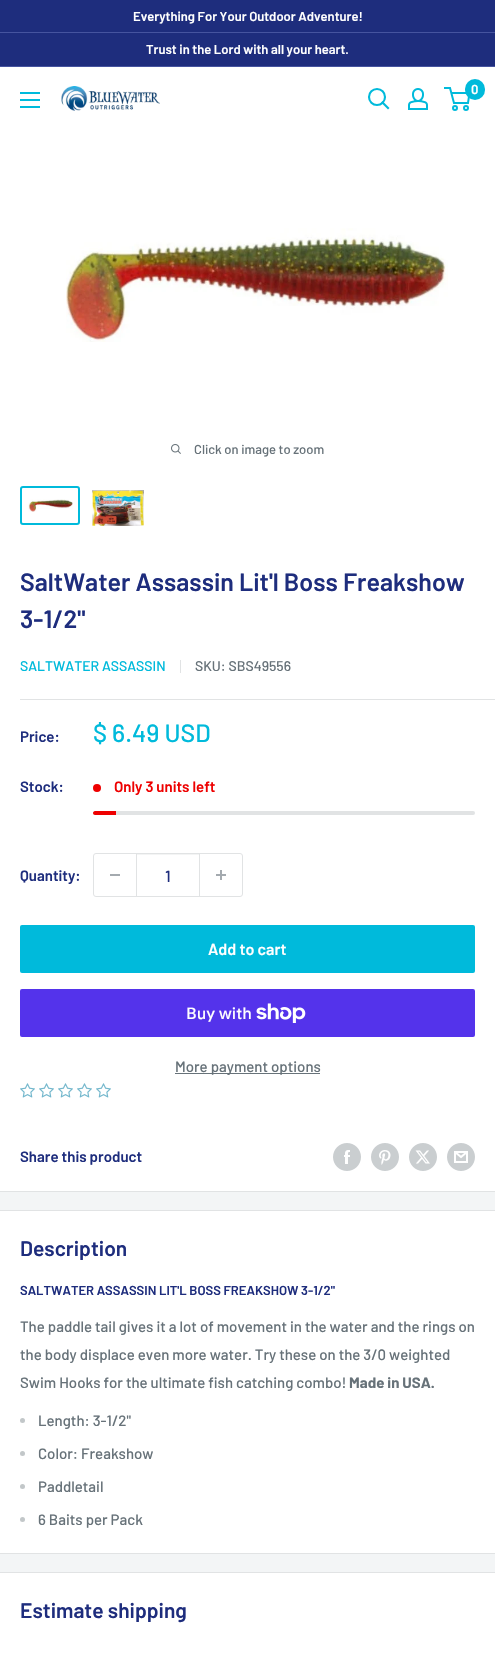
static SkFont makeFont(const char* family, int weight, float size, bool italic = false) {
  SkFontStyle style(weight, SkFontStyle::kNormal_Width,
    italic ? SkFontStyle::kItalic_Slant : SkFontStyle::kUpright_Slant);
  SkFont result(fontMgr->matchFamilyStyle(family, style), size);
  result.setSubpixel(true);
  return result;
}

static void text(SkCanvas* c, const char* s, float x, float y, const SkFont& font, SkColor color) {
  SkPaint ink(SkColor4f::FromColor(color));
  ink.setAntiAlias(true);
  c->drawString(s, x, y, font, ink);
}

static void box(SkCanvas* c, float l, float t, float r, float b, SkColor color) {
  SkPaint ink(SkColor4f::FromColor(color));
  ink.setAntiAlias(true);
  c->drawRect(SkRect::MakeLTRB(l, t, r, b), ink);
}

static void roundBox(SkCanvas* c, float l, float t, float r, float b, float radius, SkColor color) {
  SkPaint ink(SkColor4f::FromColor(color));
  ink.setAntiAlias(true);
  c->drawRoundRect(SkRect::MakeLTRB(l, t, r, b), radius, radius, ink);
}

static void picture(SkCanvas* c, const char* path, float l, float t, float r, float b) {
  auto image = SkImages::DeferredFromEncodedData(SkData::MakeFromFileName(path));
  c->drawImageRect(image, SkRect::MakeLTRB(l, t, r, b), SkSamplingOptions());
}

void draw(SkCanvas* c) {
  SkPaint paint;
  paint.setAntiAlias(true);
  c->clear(0xfff3f5f6);
  box(c, 0, 0, 495, 32, 0xff1e2d7d);
  box(c, 0, 32, 495, 33, 0xff46549f);
  SkFont face1 = makeFont("Barlow", 600, 13);
  text(c, "Everything For Your Outdoor Adventure!", 133, 21, face1, 0xffffffff);
  box(c, 0, 33, 495, 66, 0xff1e2d7d);
  box(c, 0, 66, 495, 67, 0xff46549f);
  text(c, "Trust in the Lord with all your heart.", 146, 54, face1, 0xffffffff);
  box(c, 0, 67, 495, 1191, 0xffffffff);
  picture(c, "img_01.png", 20, 92, 40, 108);
  picture(c, "img_02.png", 61, 86, 160, 111);
  paint.setStyle(SkPaint::kStroke_Style);
  paint.setStrokeWidth(2.1f);
  paint.setStrokeCap(SkPaint::kSquare_Cap);
  paint.setColor(0xff00badb);
  c->drawPath(SkPathBuilder().moveTo(388, 108).lineTo(382.5f, 102.5f).detach(), paint);
  paint.setStrokeCap(SkPaint::kButt_Cap);
  c->drawCircle(377, 97, 8, paint);
  picture(c, "img_03.png", 408, 88, 428, 110);
  paint.setStrokeWidth(2);
  c->drawCircle(455, 108, 2, paint);
  c->drawCircle(466, 108, 2, paint);
  c->drawPath(SkPathBuilder().moveTo(451.5f, 93).lineTo(469.5f, 93).lineTo(468, 103).lineTo(454, 103).lineTo(450, 88).lineTo(444, 88).detach(), paint);
  roundBox(c, 465, 79, 485, 100, 10, 0xff00badb);
  text(c, "0", 471, 94, face1, 0xffffffff);
  picture(c, "img_04.png", 66, 228, 448, 342);
  picture(c, "img_05.png", 171, 444, 181, 454);
  SkFont face2 = makeFont("Barlow", 500, 13);
  text(c, "Click on image to zoom", 194, 454, face2, 0xff677279);
  c->drawRoundRect(SkRect::MakeLTRB(21, 487, 79, 524), 2, 2, paint);
  picture(c, "img_06.png", 28, 499, 73, 512);
  picture(c, "img_07.png", 92, 490, 144, 526);
  box(c, 0, 1191, 495, 1192, 0xffe1e3e4);
  SkFont face3 = makeFont("Barlow", 600, 25);
  text(c, "SaltWater Assassin Lit'l Boss Freakshow", 20, 591, face3, 0xff1e2d7d);
  text(c, "3-1/2\"", 20, 628, face3, 0xff1e2d7d);
  SkFont face4 = makeFont("Barlow", 500, 14);
  text(c, "SALTWATER ASSASSIN", 20, 671, face4, 0xff00badb);
  box(c, 180, 660, 181, 673, 0xffe1e3e4);
  text(c, "SKU: SBS49556", 195, 671, face4, 0xff677279);
  box(c, 20, 699, 495, 700, 0xffe1e3e4);
  SkFont face5 = makeFont("Barlow", 600, 15);
  text(c, "Price:", 20, 742, face5, 0xff1e2d7d);
  SkFont face6 = makeFont("Barlow", 500, 25);
  text(c, "$ 6.49 USD", 93, 742, face6, 0xff00badb);
  text(c, "Stock:", 20, 792, face5, 0xff1e2d7d);
  paint.setStyle(SkPaint::kFill_Style);
  paint.setColor(0xffee0000);
  c->drawCircle(97, 788, 4, paint);
  text(c, "Only 3 units left", 114, 792, face5, 0xffee0000);
  roundBox(c, 93, 811, 475, 815, 2, 0xffe1e3e4);
  c->drawPath(SkPathBuilder().moveTo(95, 811).lineTo(116, 811).lineTo(116, 815).lineTo(95, 815).cubicTo(94, 815, 93, 814, 93, 813).cubicTo(93, 812, 94, 811, 95, 811).close().detach(), paint);
  text(c, "Quantity:", 20, 881, face5, 0xff1e2d7d);
  paint.setStyle(SkPaint::kStroke_Style);
  paint.setStrokeWidth(1);
  paint.setColor(0xffe1e3e4);
  c->drawRoundRect(SkRect::MakeLTRB(93.5f, 853.5f, 242.5f, 896.5f), 2.5f, 2.5f, paint);
  box(c, 110, 874, 120, 876, 0xffa4aaaf);
  box(c, 137, 854, 199, 855, 0xfff3f4f4);
  box(c, 199, 854, 200, 896, 0xffe1e3e4);
  box(c, 136, 854, 137, 896, 0xffe1e3e4);
  SkFont face7 = makeFont("Barlow", 500, 16);
  text(c, "1", 165, 882, face7, 0xff1e2d7d);
  picture(c, "img_08.png", 216, 870, 226, 880);
  roundBox(c, 20, 925, 475, 973, 2, 0xff00badb);
  SkFont face8 = makeFont("Barlow", 600, 16);
  text(c, "Add to cart", 208, 955, face8, 0xffffffff);
  roundBox(c, 20, 989, 475, 1037, 2, 0xff5433eb);
  SkFont face9 = makeFont("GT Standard", 500, 16);
  text(c, "Buy with", 186, 1019, face9, 0xffffffff);
  picture(c, "img_09.png", 256, 1003, 306, 1023);
  box(c, 175, 1073, 320, 1074, 0xff677279);
  SkFont face10 = makeFont("Barlow", 500, 15);
  text(c, "More payment options", 175, 1072, face10, 0xff677279);
  picture(c, "img_10.png", 20, 1083, 35, 1098);
  picture(c, "img_10.png", 39, 1083, 54, 1098);
  picture(c, "img_10.png", 58, 1083, 73, 1098);
  picture(c, "img_10.png", 77, 1083, 92, 1098);
  picture(c, "img_10.png", 96, 1083, 111, 1098);
  text(c, "Share this product", 20, 1162, face5, 0xff1e2d7d);
  picture(c, "img_11.png", 333, 1143, 361, 1171);
  picture(c, "img_12.png", 371, 1143, 399, 1171);
  picture(c, "img_13.png", 409, 1143, 437, 1171);
  picture(c, "img_14.png", 447, 1143, 475, 1171);
  box(c, 0, 1211, 495, 1553, 0xffffffff);
  box(c, 0, 1210, 495, 1211, 0xffe1e3e4);
  box(c, 0, 1553, 495, 1554, 0xffe1e3e4);
  SkFont face11 = makeFont("Barlow", 600, 21);
  text(c, "Description", 20, 1256, face11, 0xff1e2d7d);
  text(c, "SALTWATER ASSASSIN LIT'L BOSS FREAKSHOW 3-1/2\"", 20, 1295, face1, 0xff1e2d7d);
  text(c, "The paddle tail gives it a lot of movement in the water and the rings on", 20, 1332, face10, 0xff677279);
  text(c, "the body displace even more water. Try these on the 3/0 weighted", 20, 1360, face10, 0xff677279);
  text(c, "Swim Hooks for the ultimate fish catching combo!", 20, 1388, face10, 0xff677279);
  SkFont face12 = makeFont("Barlow", 700, 15);
  text(c, "Made in USA.", 349, 1388, face12, 0xff677279);
  paint.setStyle(SkPaint::kFill_Style);
  paint.setColor(0xffc2c7c9);
  c->drawCircle(22.5f, 1420.5f, 2.5f, paint);
  text(c, "Length: 3-1/2\"", 38, 1426, face10, 0xff677279);
  c->drawCircle(22.5f, 1453.5f, 2.5f, paint);
  text(c, "Color: Freakshow", 38, 1459, face10, 0xff677279);
  c->drawCircle(22.5f, 1486.5f, 2.5f, paint);
  text(c, "Paddletail", 38, 1492, face10, 0xff677279);
  c->drawCircle(22.5f, 1519.5f, 2.5f, paint);
  text(c, "6 Baits per Pack", 38, 1525, face10, 0xff677279);
  box(c, 0, 1573, 495, 1657, 0xffffffff);
  box(c, 0, 1572, 495, 1573, 0xffe1e3e4);
  text(c, "Estimate shipping", 20, 1618, face11, 0xff1e2d7d);
}
